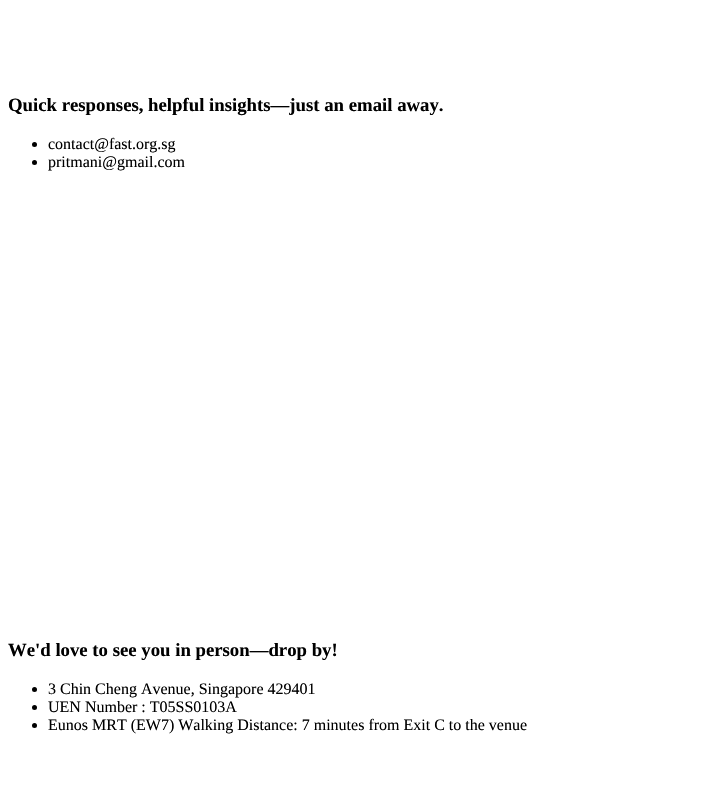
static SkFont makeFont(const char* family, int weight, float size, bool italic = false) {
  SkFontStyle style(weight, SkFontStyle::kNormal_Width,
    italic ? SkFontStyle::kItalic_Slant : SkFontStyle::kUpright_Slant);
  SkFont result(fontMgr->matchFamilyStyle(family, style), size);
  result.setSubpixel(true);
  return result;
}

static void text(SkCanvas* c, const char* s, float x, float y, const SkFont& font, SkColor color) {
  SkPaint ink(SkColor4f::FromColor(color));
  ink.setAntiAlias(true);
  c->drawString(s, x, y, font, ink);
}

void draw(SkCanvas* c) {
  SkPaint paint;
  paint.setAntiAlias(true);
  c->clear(0xffffffff);
  SkFont face1 = makeFont("Liberation Serif", 700, 18.75f);
  text(c, "Quick responses, helpful insights—just an email away.", 8, 111, face1, 0xff000000);
  paint.setColor(0xff000000);
  c->drawCircle(34.5f, 144.5f, 2.5f, paint);
  SkFont face2 = makeFont("Liberation Serif", 400, 16);
  text(c, "contact@fast.org.sg", 48, 149, face2, 0xff000000);
  c->drawCircle(34.5f, 162.5f, 2.5f, paint);
  text(c, "pritmani@gmail.com", 48, 167, face2, 0xff000000);
  text(c, "We'd love to see you in person—drop by!", 8, 656, face1, 0xff000000);
  c->drawCircle(34.5f, 689.5f, 2.5f, paint);
  text(c, "3 Chin Cheng Avenue, Singapore 429401", 48, 694, face2, 0xff000000);
  c->drawCircle(34.5f, 707.5f, 2.5f, paint);
  text(c, "UEN Number : T05SS0103A", 48, 712, face2, 0xff000000);
  c->drawCircle(34.5f, 725.5f, 2.5f, paint);
  text(c, "Eunos MRT (EW7) Walking Distance: 7 minutes from Exit C to the venue", 48, 730, face2, 0xff000000);
}
